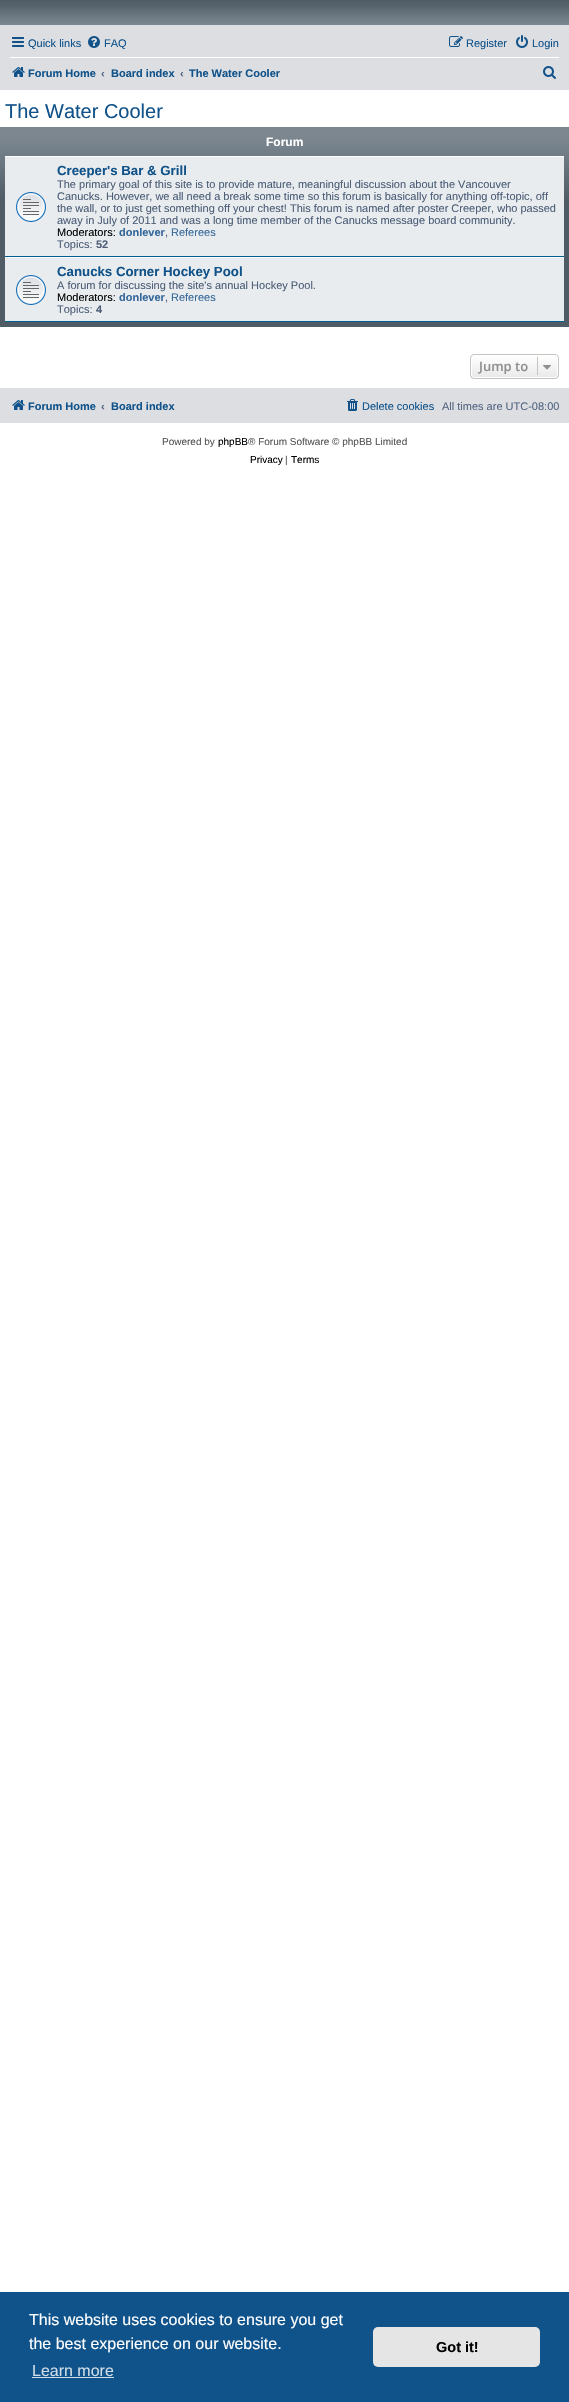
static SkFont makeFont(const char* family, int weight, float size, bool italic = false) {
  SkFontStyle style(weight, SkFontStyle::kNormal_Width,
    italic ? SkFontStyle::kItalic_Slant : SkFontStyle::kUpright_Slant);
  SkFont result(fontMgr->matchFamilyStyle(family, style), size);
  result.setSubpixel(true);
  return result;
}

static void text(SkCanvas* c, const char* s, float x, float y, const SkFont& font, SkColor color) {
  SkPaint ink(SkColor4f::FromColor(color));
  ink.setAntiAlias(true);
  c->drawString(s, x, y, font, ink);
}

static void box(SkCanvas* c, float l, float t, float r, float b, SkColor color) {
  SkPaint ink(SkColor4f::FromColor(color));
  ink.setAntiAlias(true);
  c->drawRect(SkRect::MakeLTRB(l, t, r, b), ink);
}

static void roundBox(SkCanvas* c, float l, float t, float r, float b, float radius, SkColor color) {
  SkPaint ink(SkColor4f::FromColor(color));
  ink.setAntiAlias(true);
  c->drawRoundRect(SkRect::MakeLTRB(l, t, r, b), radius, radius, ink);
}

static void picture(SkCanvas* c, const char* path, float l, float t, float r, float b) {
  auto image = SkImages::DeferredFromEncodedData(SkData::MakeFromFileName(path));
  c->drawImageRect(image, SkRect::MakeLTRB(l, t, r, b), SkSamplingOptions());
}

void draw(SkCanvas* c) {
  SkPaint paint;
  paint.setAntiAlias(true);
  c->clear(0xffffffff);
  {
    const SkColor colors[] = {0xff6e777f, 0xff505c65, 0xff56626b, 0xff737f88, 0xff7c8891};
    const float stops[] = {0, 0.01f, 0.2f, 0.75f, 1};
    const SkPoint ends[] = {{285, 0}, {285, 26}};
    paint.setShader(SkGradientShader::MakeLinear(ends, colors, stops, 5, SkTileMode::kClamp));
    paint.setAlpha(255);
  }
  c->drawRect(SkRect::MakeLTRB(0, 0, 569, 25), paint);
  box(c, 0, 25, 569, 90, 0xffdcdee2);
  picture(c, "img_01.png", 12, 37, 24, 47);
  SkFont face1 = makeFont("Liberation Sans", 400, 11);
  text(c, "Quick links", 28, 47, face1, 0xff105289);
  picture(c, "img_02.png", 88, 36, 100, 48);
  text(c, "FAQ", 104, 47, face1, 0xff105289);
  picture(c, "img_03.png", 449, 36, 463, 47);
  text(c, "Register", 466, 47, face1, 0xff105289);
  picture(c, "img_04.png", 516, 35, 528, 48);
  text(c, "Login", 532, 47, face1, 0xff105289);
  box(c, 10, 57, 559, 58, 0xffffffff);
  picture(c, "img_05.png", 12, 67, 25, 77);
  SkFont face2 = makeFont("Liberation Sans", 700, 11);
  text(c, "Forum Home", 28, 77, face2, 0xff105289);
  text(c, "‹", 101, 77, face2, 0xff536482);
  text(c, "Board index", 111, 77, face2, 0xff105289);
  text(c, "‹", 180, 77, face2, 0xff536482);
  text(c, "The Water Cooler", 189, 77, face2, 0xff105289);
  picture(c, "img_06.png", 543, 66, 556, 79);
  SkFont face3 = makeFont("Liberation Sans", 400, 20);
  text(c, "The Water Cooler", 5, 118, face3, 0xff105289);
  {
    const SkColor colors[] = {0xff7c8891, 0xff7c8790, 0xff76828b, 0xff5b666f, 0xff505c65, 0xff505c65};
    const float stops[] = {0, 0.04f, 0.1f, 0.29f, 0.38f, 1};
    const SkPoint ends[] = {{285, 127}, {285, 327}};
    paint.setShader(SkGradientShader::MakeLinear(ends, colors, stops, 6, SkTileMode::kClamp));
    paint.setAlpha(255);
  }
  c->drawRect(SkRect::MakeLTRB(0, 127, 569, 327), paint);
  SkFont face4 = makeFont("Liberation Sans", 700, 12);
  text(c, "Forum", 266, 146, face4, 0xffffffff);
  box(c, 5, 157, 564, 256, 0xffe8ecee);
  box(c, 5, 156, 564, 157, 0xffffffff);
  box(c, 5, 256, 564, 257, 0xff00608f);
  picture(c, "img_07.png", 16, 192, 46, 222);
  SkFont face5 = makeFont("Liberation Sans", 700, 13.25f);
  text(c, "Creeper's Bar & Grill", 57, 175, face5, 0xff105289);
  text(c, "The primary goal of this site is to provide mature, meaningful discussion about the Vancouver", 57, 188, face1, 0xff4c5d77);
  text(c, "Canucks. However, we all need a break some time so this forum is basically for anything off-topic, off", 57, 200, face1, 0xff4c5d77);
  text(c, "the wall, or to just get something off your chest! This forum is named after poster Creeper, who passed", 57, 212, face1, 0xff4c5d77);
  text(c, "away in July of 2011 and was a long time member of the Canucks message board community.", 57, 224, face1, 0xff4c5d77);
  text(c, "Moderators:", 57, 236, face1, 0xff000000);
  text(c, "donlever", 119, 236, face2, 0xff336699);
  text(c, ",", 165, 236, face1, 0xff4c5d77);
  text(c, "Referees", 171, 236, face1, 0xff336699);
  text(c, "Topics:", 57, 248, face1, 0xff4c5d77);
  text(c, "52", 96, 248, face2, 0xff4c5d77);
  box(c, 5, 258, 564, 321, 0xffe8ecee);
  box(c, 5, 257, 564, 258, 0xffffffff);
  box(c, 5, 321, 564, 322, 0xff00608f);
  picture(c, "img_07.png", 16, 275, 46, 305);
  text(c, "Canucks Corner Hockey Pool", 57, 276, face5, 0xff105289);
  text(c, "A forum for discussing the site's annual Hockey Pool.", 57, 289, face1, 0xff4c5d77);
  text(c, "Moderators:", 57, 301, face1, 0xff000000);
  text(c, "donlever", 119, 301, face2, 0xff336699);
  text(c, ",", 165, 301, face1, 0xff4c5d77);
  text(c, "Referees", 171, 301, face1, 0xff336699);
  text(c, "Topics:", 57, 313, face1, 0xff4c5d77);
  text(c, "4", 96, 313, face2, 0xff4c5d77);
  c->save();
  c->clipPath(SkPathBuilder().moveTo(474, 354).lineTo(555, 354).cubicTo(557, 354, 559, 356, 559, 358).lineTo(559, 375).cubicTo(559, 377, 557, 379, 555, 379).lineTo(474, 379).cubicTo(472, 379, 470, 377, 470, 375).lineTo(470, 358).cubicTo(470, 356, 472, 354, 474, 354).close().detach(), true);
  {
    const SkColor colors[] = {0xffffffff, 0xffe9e9e9};
    const float stops[] = {0, 1};
    const SkPoint ends[] = {{515, 355}, {515, 378}};
    paint.setShader(SkGradientShader::MakeLinear(ends, colors, stops, 2, SkTileMode::kClamp));
    paint.setAlpha(255);
  }
  c->drawRect(SkRect::MakeLTRB(470, 355, 559, 378), paint);
  c->restore();
  paint.setStyle(SkPaint::kStroke_Style);
  paint.setStrokeWidth(1);
  paint.setShader(nullptr);
  paint.setColor(0xffffffff);
  c->drawRoundRect(SkRect::MakeLTRB(471.5f, 355.5f, 557.5f, 377.5f), 2.5f, 2.5f, paint);
  paint.setColor(0xffc7c3bf);
  c->drawRoundRect(SkRect::MakeLTRB(470.5f, 354.5f, 558.5f, 378.5f), 3.5f, 3.5f, paint);
  SkFont face6 = makeFont("Open Sans", 600, 13);
  text(c, "Jump to", 479, 371, face6, 0xff8f8f8f);
  box(c, 537, 357, 538, 375, 0xffc7c3bf);
  picture(c, "img_08.png", 543, 365, 551, 370);
  box(c, 0, 388, 569, 423, 0xffdcdee2);
  picture(c, "img_05.png", 12, 400, 25, 410);
  text(c, "Forum Home", 28, 410, face2, 0xff105289);
  text(c, "‹", 101, 410, face2, 0xff536482);
  text(c, "Board index", 111, 410, face2, 0xff105289);
  picture(c, "img_09.png", 347, 399, 358, 411);
  text(c, "Delete cookies", 362, 410, face1, 0xff105289);
  text(c, "All times are UTC-08:00", 442, 410, face1, 0xff536482);
  SkFont face7 = makeFont("Liberation Sans", 400, 10);
  text(c, "Powered by", 162, 445, face7, 0xff555555);
  text(c, "phpBB", 218, 445, face7, 0xff000000);
  text(c, "® Forum Software © phpBB Limited", 248, 445, face7, 0xff555555);
  text(c, "Privacy", 250, 463, face7, 0xff000000);
  text(c, "|", 285, 463, face7, 0xff555555);
  text(c, "Terms", 291, 463, face7, 0xff000000);
  box(c, 0, 2292, 569, 2402, 0xff0f538a);
  SkFont face8 = makeFont("Liberation Sans", 400, 16);
  text(c, "This website uses cookies to ensure you get", 29, 2325, face8, 0xffffffff);
  text(c, "the best experience on our website.", 29, 2349, face8, 0xffffffff);
  text(c, "Learn more", 32, 2376, face8, 0xffcfdde8);
  box(c, 32, 2377, 114, 2378, 0xffcfdde8);
  roundBox(c, 373, 2327, 540, 2367, 5, 0xffe5e5e5);
  SkFont face9 = makeFont("Liberation Sans", 700, 14.5f);
  text(c, "Got it!", 436, 2352, face9, 0xff000000);
}
